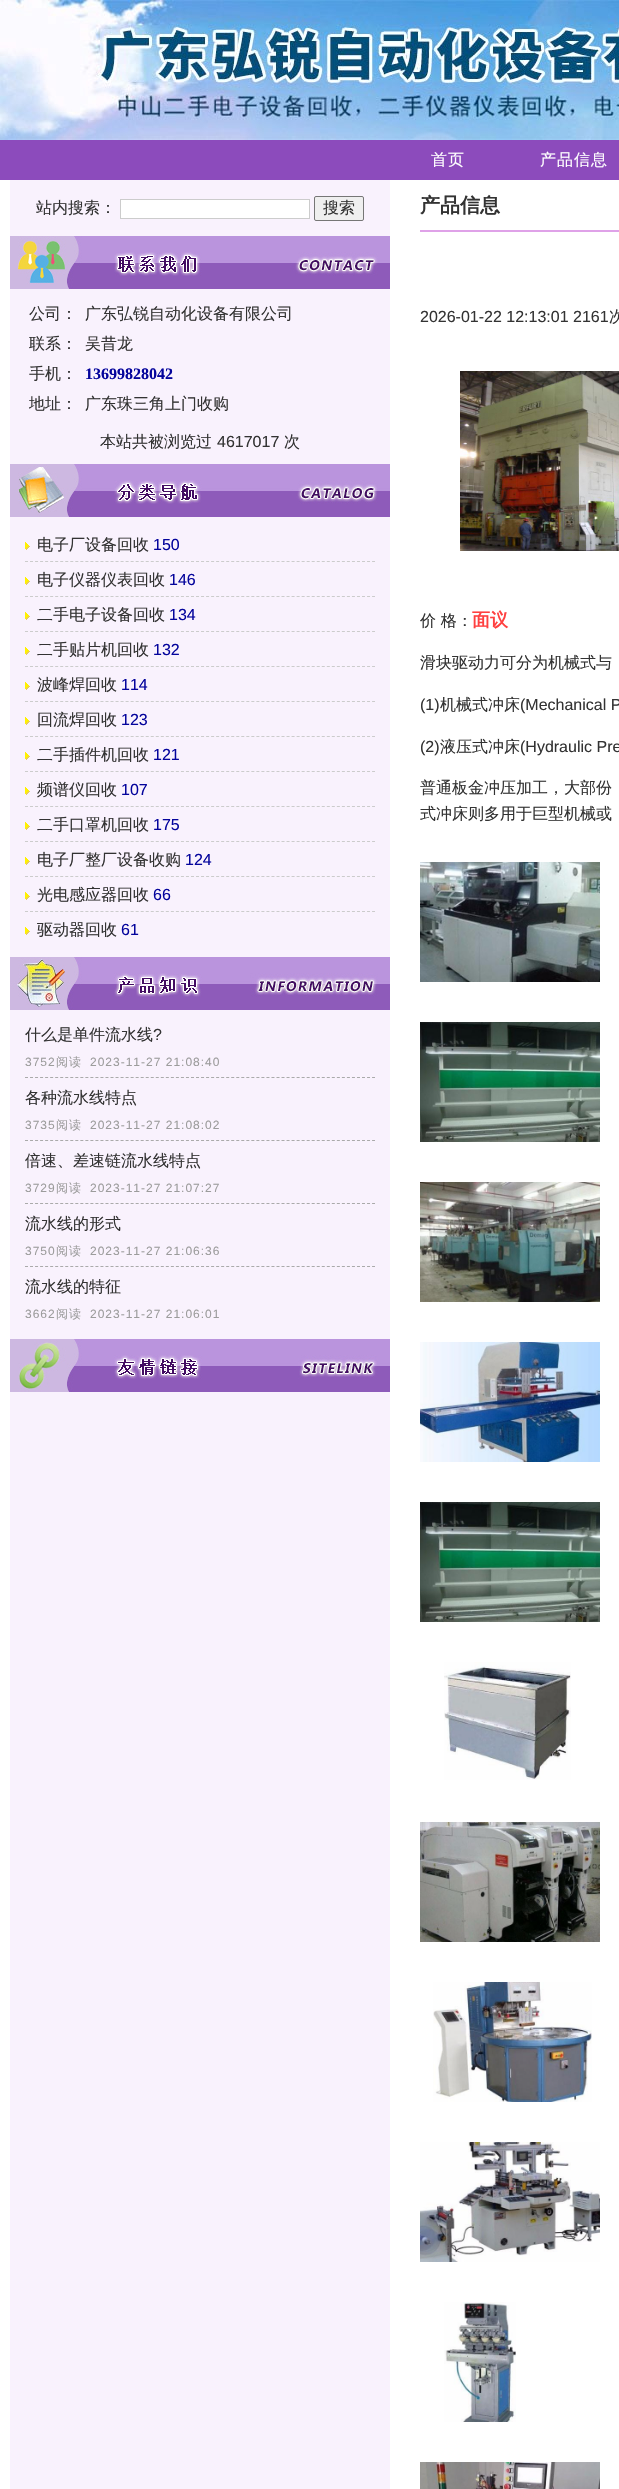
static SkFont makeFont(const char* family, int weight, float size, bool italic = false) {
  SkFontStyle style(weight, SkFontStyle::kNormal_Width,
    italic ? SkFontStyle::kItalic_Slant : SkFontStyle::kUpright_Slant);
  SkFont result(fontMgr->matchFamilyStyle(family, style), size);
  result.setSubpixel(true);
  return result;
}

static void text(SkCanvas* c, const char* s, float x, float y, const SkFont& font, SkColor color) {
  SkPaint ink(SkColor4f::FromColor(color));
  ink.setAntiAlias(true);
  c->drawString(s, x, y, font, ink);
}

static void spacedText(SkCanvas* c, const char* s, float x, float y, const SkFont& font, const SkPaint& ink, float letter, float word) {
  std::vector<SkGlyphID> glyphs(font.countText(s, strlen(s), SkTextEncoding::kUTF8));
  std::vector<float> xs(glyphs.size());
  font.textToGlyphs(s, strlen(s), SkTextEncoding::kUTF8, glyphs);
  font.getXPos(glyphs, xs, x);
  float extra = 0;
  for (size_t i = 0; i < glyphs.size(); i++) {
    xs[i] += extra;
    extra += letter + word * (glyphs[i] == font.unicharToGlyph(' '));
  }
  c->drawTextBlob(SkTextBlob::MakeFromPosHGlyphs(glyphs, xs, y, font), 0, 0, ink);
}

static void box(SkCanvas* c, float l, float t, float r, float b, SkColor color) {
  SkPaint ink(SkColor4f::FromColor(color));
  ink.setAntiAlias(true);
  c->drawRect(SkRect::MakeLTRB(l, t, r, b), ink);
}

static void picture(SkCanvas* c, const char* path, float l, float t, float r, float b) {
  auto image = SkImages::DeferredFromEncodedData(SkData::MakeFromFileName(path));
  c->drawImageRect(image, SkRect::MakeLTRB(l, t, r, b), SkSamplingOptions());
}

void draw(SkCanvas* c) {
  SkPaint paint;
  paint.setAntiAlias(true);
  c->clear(0xffffffff);
  picture(c, "img_01.png", 0, 0, 619, 140);
  box(c, 0, 140, 619, 180, 0xff8c4bbc);
  SkFont face1 = makeFont("WenQuanYi Zen Hei", 500, 16);
  paint.setColor(0xffffffff);
  spacedText(c, "首页", 431, 165, face1, paint, 1, 0);
  spacedText(c, "产品信息", 540, 165, face1, paint, 1, 0);
  box(c, 10, 180, 390, 2489, 0xfff9f2fd);
  text(c, "站内搜索：", 36, 213, face1, 0xff333333);
  c->drawRect(SkRect::MakeLTRB(120.5f, 199.5f, 309.5f, 218.5f), paint);
  paint.setStyle(SkPaint::kStroke_Style);
  paint.setStrokeWidth(1);
  paint.setColor(0xffcccccc);
  c->drawRect(SkRect::MakeLTRB(120.5f, 199.5f, 309.5f, 218.5f), paint);
  paint.setStyle(SkPaint::kFill_Style);
  paint.setColor(0xffefefef);
  c->drawRoundRect(SkRect::MakeLTRB(314.5f, 196.5f, 363.5f, 220.5f), 1.5f, 1.5f, paint);
  paint.setStyle(SkPaint::kStroke_Style);
  paint.setColor(0xff767676);
  c->drawRoundRect(SkRect::MakeLTRB(314.5f, 196.5f, 363.5f, 220.5f), 1.5f, 1.5f, paint);
  text(c, "搜索", 323, 213, face1, 0xff333333);
  picture(c, "img_02.png", 10, 236, 390, 289);
  text(c, "公司：", 29, 319, face1, 0xff333333);
  text(c, "广东弘锐自动化设备有限公司", 85, 319, face1, 0xff333333);
  text(c, "联系：", 29, 349, face1, 0xff333333);
  text(c, "吴昔龙", 85, 349, face1, 0xff333333);
  text(c, "手机：", 29, 379, face1, 0xff333333);
  SkFont face2 = makeFont("Liberation Serif", 700, 16);
  text(c, "13699828042", 85, 379, face2, 0xff04049c);
  text(c, "地址：", 29, 409, face1, 0xff333333);
  text(c, "广东珠三角上门收购", 85, 409, face1, 0xff333333);
  text(c, "本站共被浏览过", 100, 447, face1, 0xff333333);
  SkFont face3 = makeFont("Liberation Sans", 400, 16);
  text(c, "4617017", 217, 447, face3, 0xff333333);
  text(c, "次", 284, 447, face1, 0xff333333);
  picture(c, "img_03.png", 10, 464, 390, 517);
  paint.setColor(0xffcccccc);
  paint.setPathEffect(SkDashPathEffect::Make({{3, 2.03f}}, 0));
  c->drawPath(SkPathBuilder().moveTo(25, 561.5f).lineTo(375, 561.5f).detach(), paint);
  paint.setPathEffect(nullptr);
  picture(c, "img_04.png", 25, 542, 30, 550);
  text(c, "电子厂设备回收", 37, 550, face1, 0xff333333);
  text(c, "150", 153, 550, face3, 0xff04049c);
  paint.setPathEffect(SkDashPathEffect::Make({{3, 2.03f}}, 0));
  c->drawPath(SkPathBuilder().moveTo(25, 596.5f).lineTo(375, 596.5f).detach(), paint);
  paint.setPathEffect(nullptr);
  picture(c, "img_04.png", 25, 577, 30, 585);
  text(c, "电子仪器仪表回收", 37, 585, face1, 0xff333333);
  text(c, "146", 169, 585, face3, 0xff04049c);
  paint.setPathEffect(SkDashPathEffect::Make({{3, 2.03f}}, 0));
  c->drawPath(SkPathBuilder().moveTo(25, 631.5f).lineTo(375, 631.5f).detach(), paint);
  paint.setPathEffect(nullptr);
  picture(c, "img_04.png", 25, 612, 30, 620);
  text(c, "二手电子设备回收", 37, 620, face1, 0xff333333);
  text(c, "134", 169, 620, face3, 0xff04049c);
  paint.setPathEffect(SkDashPathEffect::Make({{3, 2.03f}}, 0));
  c->drawPath(SkPathBuilder().moveTo(25, 666.5f).lineTo(375, 666.5f).detach(), paint);
  paint.setPathEffect(nullptr);
  picture(c, "img_04.png", 25, 647, 30, 655);
  text(c, "二手贴片机回收", 37, 655, face1, 0xff333333);
  text(c, "132", 153, 655, face3, 0xff04049c);
  paint.setPathEffect(SkDashPathEffect::Make({{3, 2.03f}}, 0));
  c->drawPath(SkPathBuilder().moveTo(25, 701.5f).lineTo(375, 701.5f).detach(), paint);
  paint.setPathEffect(nullptr);
  picture(c, "img_04.png", 25, 682, 30, 690);
  text(c, "波峰焊回收", 37, 690, face1, 0xff333333);
  text(c, "114", 121, 690, face3, 0xff04049c);
  paint.setPathEffect(SkDashPathEffect::Make({{3, 2.03f}}, 0));
  c->drawPath(SkPathBuilder().moveTo(25, 736.5f).lineTo(375, 736.5f).detach(), paint);
  paint.setPathEffect(nullptr);
  picture(c, "img_04.png", 25, 717, 30, 725);
  text(c, "回流焊回收", 37, 725, face1, 0xff333333);
  text(c, "123", 121, 725, face3, 0xff04049c);
  paint.setPathEffect(SkDashPathEffect::Make({{3, 2.03f}}, 0));
  c->drawPath(SkPathBuilder().moveTo(25, 771.5f).lineTo(375, 771.5f).detach(), paint);
  paint.setPathEffect(nullptr);
  picture(c, "img_04.png", 25, 752, 30, 760);
  text(c, "二手插件机回收", 37, 760, face1, 0xff333333);
  text(c, "121", 153, 760, face3, 0xff04049c);
  paint.setPathEffect(SkDashPathEffect::Make({{3, 2.03f}}, 0));
  c->drawPath(SkPathBuilder().moveTo(25, 806.5f).lineTo(375, 806.5f).detach(), paint);
  paint.setPathEffect(nullptr);
  picture(c, "img_04.png", 25, 787, 30, 795);
  text(c, "频谱仪回收", 37, 795, face1, 0xff333333);
  text(c, "107", 121, 795, face3, 0xff04049c);
  paint.setPathEffect(SkDashPathEffect::Make({{3, 2.03f}}, 0));
  c->drawPath(SkPathBuilder().moveTo(25, 841.5f).lineTo(375, 841.5f).detach(), paint);
  paint.setPathEffect(nullptr);
  picture(c, "img_04.png", 25, 822, 30, 830);
  text(c, "二手口罩机回收", 37, 830, face1, 0xff333333);
  text(c, "175", 153, 830, face3, 0xff04049c);
  paint.setPathEffect(SkDashPathEffect::Make({{3, 2.03f}}, 0));
  c->drawPath(SkPathBuilder().moveTo(25, 876.5f).lineTo(375, 876.5f).detach(), paint);
  paint.setPathEffect(nullptr);
  picture(c, "img_04.png", 25, 857, 30, 865);
  text(c, "电子厂整厂设备收购", 37, 865, face1, 0xff333333);
  text(c, "124", 185, 865, face3, 0xff04049c);
  paint.setPathEffect(SkDashPathEffect::Make({{3, 2.03f}}, 0));
  c->drawPath(SkPathBuilder().moveTo(25, 911.5f).lineTo(375, 911.5f).detach(), paint);
  paint.setPathEffect(nullptr);
  picture(c, "img_04.png", 25, 892, 30, 900);
  text(c, "光电感应器回收", 37, 900, face1, 0xff333333);
  text(c, "66", 153, 900, face3, 0xff04049c);
  picture(c, "img_04.png", 25, 927, 30, 935);
  text(c, "驱动器回收", 37, 935, face1, 0xff333333);
  text(c, "61", 121, 935, face3, 0xff04049c);
  picture(c, "img_05.png", 10, 957, 390, 1010);
  paint.setColor(0xffaaaaaa);
  paint.setPathEffect(SkDashPathEffect::Make({{3, 2.03f}}, 0));
  c->drawPath(SkPathBuilder().moveTo(25, 1077.5f).lineTo(375, 1077.5f).detach(), paint);
  paint.setPathEffect(nullptr);
  text(c, "什么是单件流水线", 25, 1040, face1, 0xff333333);
  text(c, "?", 153, 1040, face3, 0xff333333);
  SkFont face4 = makeFont("Liberation Sans", 400, 12);
  paint.setStyle(SkPaint::kFill_Style);
  paint.setColor(0xff9c9c9c);
  spacedText(c, "3752", 25, 1066, face4, paint, 1, 0);
  SkFont face5 = makeFont("WenQuanYi Zen Hei", 500, 12);
  spacedText(c, "阅读", 56, 1066, face5, paint, 1, 0);
  spacedText(c, "2023-11-27 21:08:40", 90, 1066, face4, paint, 1, 0);
  paint.setStyle(SkPaint::kStroke_Style);
  paint.setColor(0xffaaaaaa);
  paint.setPathEffect(SkDashPathEffect::Make({{3, 2.03f}}, 0));
  c->drawPath(SkPathBuilder().moveTo(25, 1140.5f).lineTo(375, 1140.5f).detach(), paint);
  paint.setPathEffect(nullptr);
  text(c, "各种流水线特点", 25, 1103, face1, 0xff333333);
  paint.setStyle(SkPaint::kFill_Style);
  paint.setColor(0xff9c9c9c);
  spacedText(c, "3735", 25, 1129, face4, paint, 1, 0);
  spacedText(c, "阅读", 56, 1129, face5, paint, 1, 0);
  spacedText(c, "2023-11-27 21:08:02", 90, 1129, face4, paint, 1, 0);
  paint.setStyle(SkPaint::kStroke_Style);
  paint.setColor(0xffaaaaaa);
  paint.setPathEffect(SkDashPathEffect::Make({{3, 2.03f}}, 0));
  c->drawPath(SkPathBuilder().moveTo(25, 1203.5f).lineTo(375, 1203.5f).detach(), paint);
  paint.setPathEffect(nullptr);
  text(c, "倍速、差速链流水线特点", 25, 1166, face1, 0xff333333);
  paint.setStyle(SkPaint::kFill_Style);
  paint.setColor(0xff9c9c9c);
  spacedText(c, "3729", 25, 1192, face4, paint, 1, 0);
  spacedText(c, "阅读", 56, 1192, face5, paint, 1, 0);
  spacedText(c, "2023-11-27 21:07:27", 90, 1192, face4, paint, 1, 0);
  paint.setStyle(SkPaint::kStroke_Style);
  paint.setColor(0xffaaaaaa);
  paint.setPathEffect(SkDashPathEffect::Make({{3, 2.03f}}, 0));
  c->drawPath(SkPathBuilder().moveTo(25, 1266.5f).lineTo(375, 1266.5f).detach(), paint);
  paint.setPathEffect(nullptr);
  text(c, "流水线的形式", 25, 1229, face1, 0xff333333);
  paint.setStyle(SkPaint::kFill_Style);
  paint.setColor(0xff9c9c9c);
  spacedText(c, "3750", 25, 1255, face4, paint, 1, 0);
  spacedText(c, "阅读", 56, 1255, face5, paint, 1, 0);
  spacedText(c, "2023-11-27 21:06:36", 90, 1255, face4, paint, 1, 0);
  text(c, "流水线的特征", 25, 1292, face1, 0xff333333);
  spacedText(c, "3662", 25, 1318, face4, paint, 1, 0);
  spacedText(c, "阅读", 56, 1318, face5, paint, 1, 0);
  spacedText(c, "2023-11-27 21:06:01", 90, 1318, face4, paint, 1, 0);
  picture(c, "img_06.png", 10, 1339, 390, 1392);
  box(c, 420, 230, 619, 232, 0xffdfa2e8);
  SkFont face6 = makeFont("WenQuanYi Zen Hei", 700, 20);
  text(c, "产品信息", 420, 212, face6, 0xff333333);
  text(c, "2026-01-22 12:13:01 2161", 420, 322, face3, 0xff333333);
  text(c, "次", 609, 322, face1, 0xff333333);
  picture(c, "img_07.png", 460, 371, 619, 551);
  text(c, "价 格：", 420, 626, face1, 0xff333333);
  SkFont face7 = makeFont("WenQuanYi Zen Hei", 700, 18);
  text(c, "面议", 472, 626, face7, 0xffff4040);
  text(c, "滑块驱动力可分为机械式与", 420, 668, face1, 0xff333333);
  text(c, "(1)", 420, 710, face3, 0xff333333);
  text(c, "机械式冲床", 440, 710, face1, 0xff333333);
  text(c, "(Mechanical P", 520, 710, face3, 0xff333333);
  text(c, "(2)", 420, 752, face3, 0xff333333);
  text(c, "液压式冲床", 440, 752, face1, 0xff333333);
  text(c, "(Hydraulic Pre", 520, 752, face3, 0xff333333);
  text(c, "普通板金冲压加工，大部份", 420, 793, face1, 0xff333333);
  text(c, "式冲床则多用于巨型机械或", 420, 819, face1, 0xff333333);
  picture(c, "img_08.png", 420, 862, 600, 982);
  picture(c, "img_09.png", 420, 1022, 600, 1142);
  picture(c, "img_10.png", 420, 1182, 600, 1302);
  picture(c, "img_11.png", 420, 1342, 600, 1462);
  picture(c, "img_12.png", 420, 1502, 600, 1622);
  picture(c, "img_13.png", 444, 1662, 571, 1780);
  picture(c, "img_14.png", 420, 1822, 600, 1942);
  picture(c, "img_15.png", 433, 1982, 592, 2102);
  picture(c, "img_16.png", 420, 2142, 600, 2262);
  picture(c, "img_17.png", 444, 2302, 516, 2422);
  picture(c, "img_18.png", 420, 2462, 600, 2489);
}
